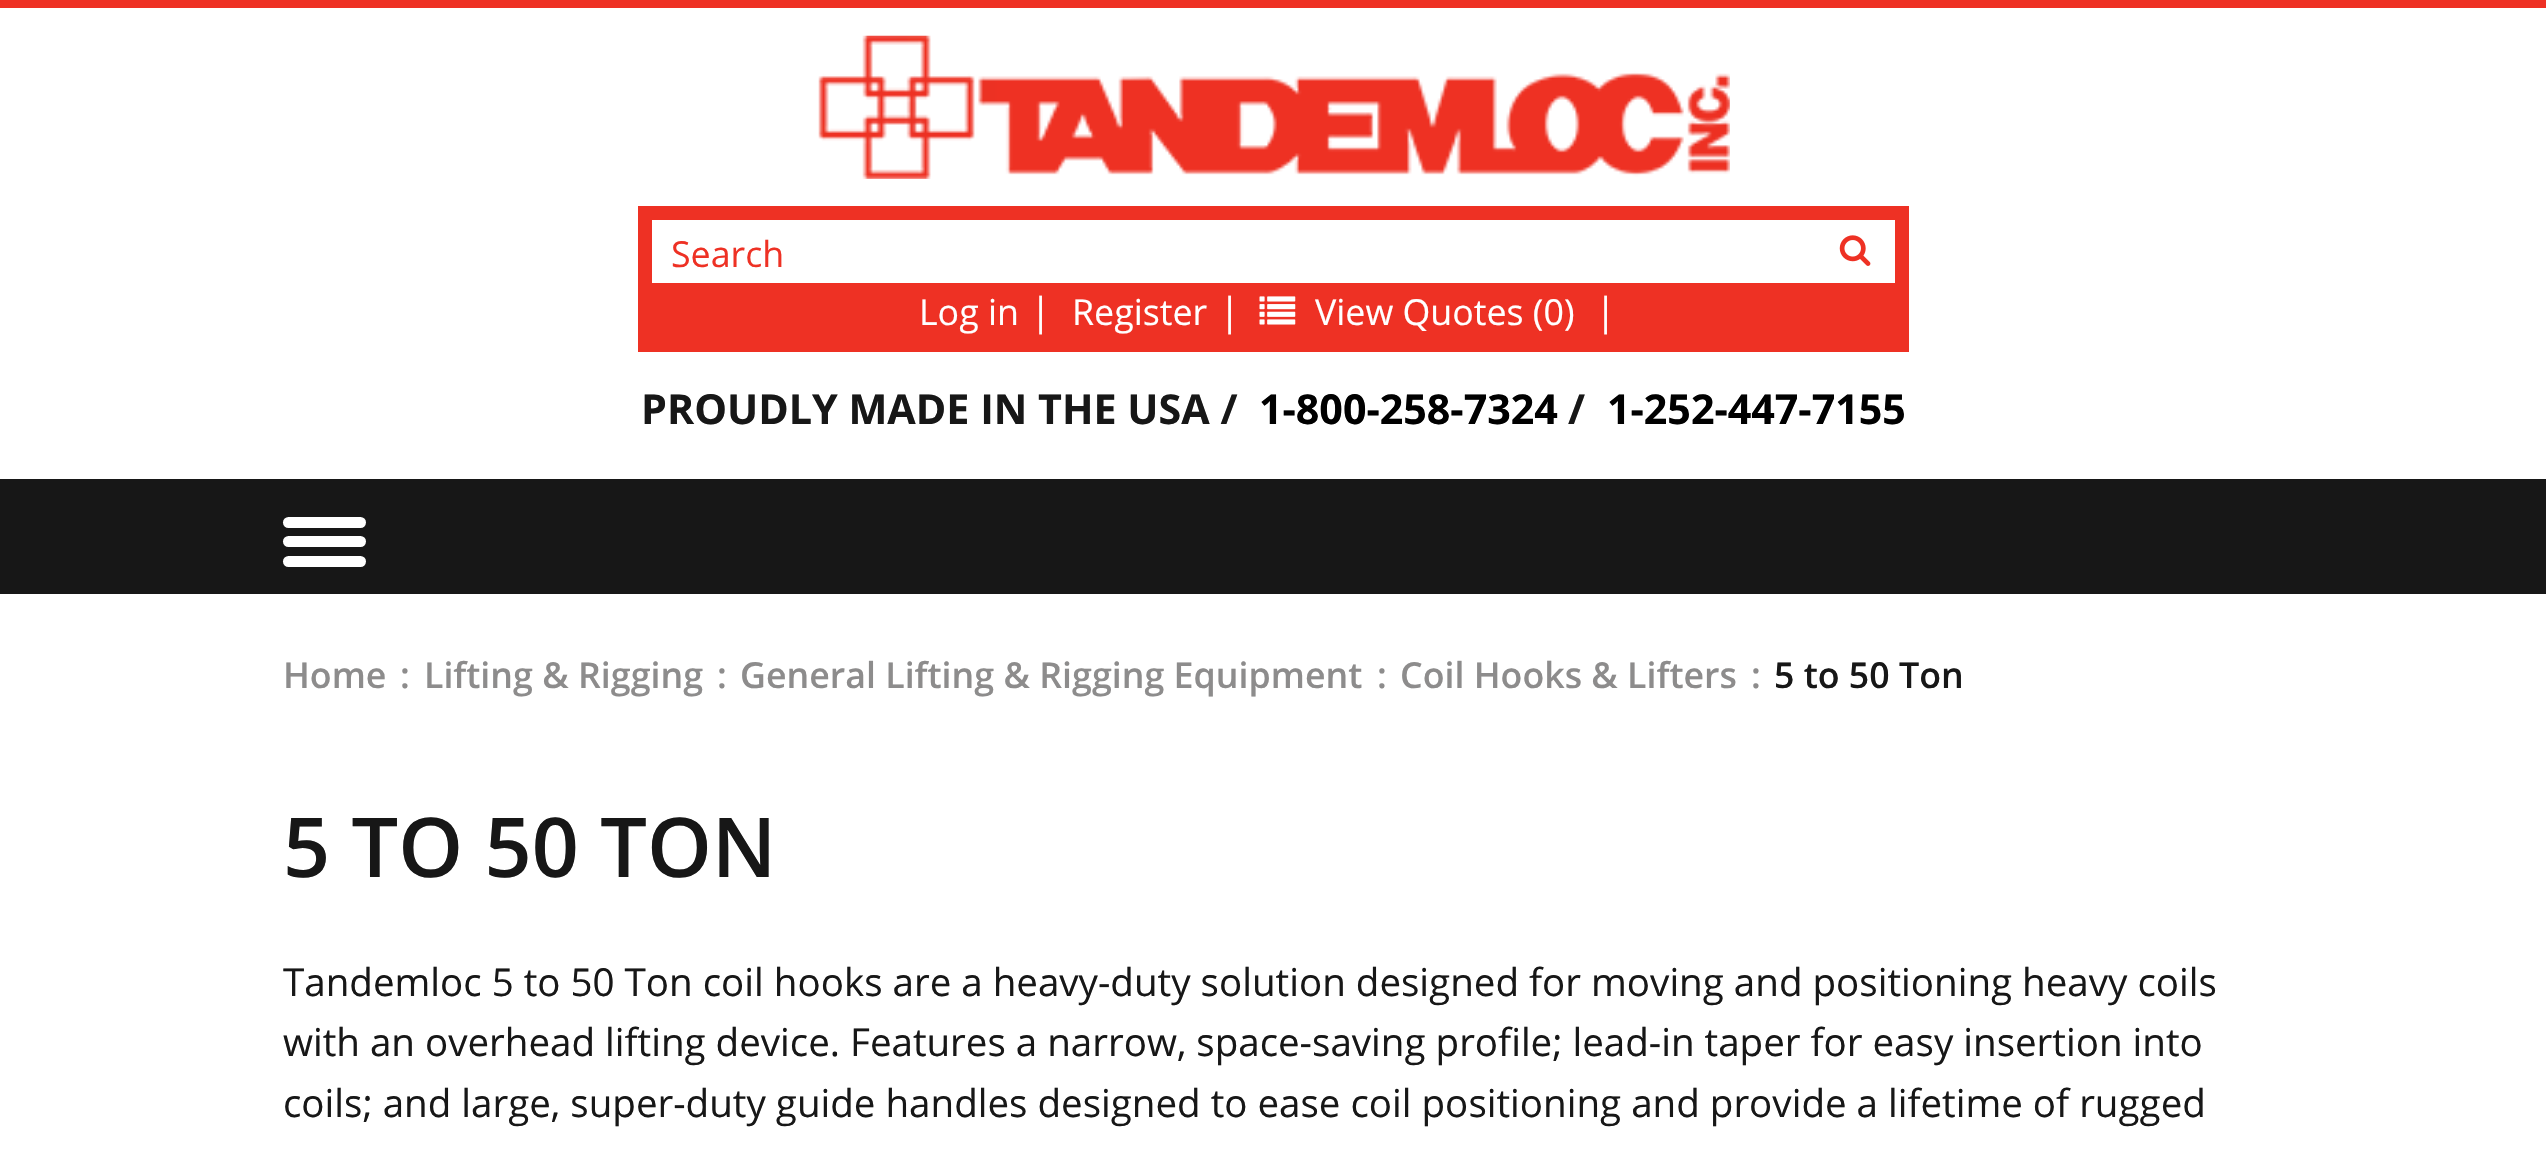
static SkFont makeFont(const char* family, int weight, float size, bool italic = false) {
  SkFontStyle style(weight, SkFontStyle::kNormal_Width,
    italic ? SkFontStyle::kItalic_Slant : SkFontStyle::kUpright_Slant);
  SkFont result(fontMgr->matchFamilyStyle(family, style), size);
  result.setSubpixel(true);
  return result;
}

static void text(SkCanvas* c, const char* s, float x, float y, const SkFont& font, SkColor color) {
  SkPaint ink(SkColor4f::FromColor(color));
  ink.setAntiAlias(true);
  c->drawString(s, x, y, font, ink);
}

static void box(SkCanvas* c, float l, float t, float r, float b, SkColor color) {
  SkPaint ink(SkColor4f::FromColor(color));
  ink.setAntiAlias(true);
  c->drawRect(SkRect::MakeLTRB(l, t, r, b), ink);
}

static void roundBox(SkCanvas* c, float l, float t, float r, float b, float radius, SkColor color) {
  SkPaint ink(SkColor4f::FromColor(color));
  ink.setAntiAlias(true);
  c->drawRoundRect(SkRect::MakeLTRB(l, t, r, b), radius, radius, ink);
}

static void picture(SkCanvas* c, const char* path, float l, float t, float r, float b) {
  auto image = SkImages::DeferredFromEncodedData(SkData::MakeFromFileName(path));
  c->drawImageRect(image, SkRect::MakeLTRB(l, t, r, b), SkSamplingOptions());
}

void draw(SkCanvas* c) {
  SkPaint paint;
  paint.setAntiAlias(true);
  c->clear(0xffffffff);
  box(c, 0, 0, 2546, 8, 0xffee3124);
  picture(c, "img_01.png", 818, 35, 1730, 179);
  box(c, 638, 206, 1909, 352, 0xffee3124);
  box(c, 652, 220, 1895, 283, 0xffffffff);
  SkFont face1 = makeFont("Open Sans", 400, 35.75f);
  text(c, "Search", 671, 267, face1, 0xffee3124);
  picture(c, "img_02.png", 1839, 235, 1871, 266);
  text(c, "Log in", 919, 325, face1, 0xffffffff);
  SkFont face2 = makeFont("Open Sans", 400, 38.5f);
  text(c, "|", 1030, 325, face2, 0xffffffff);
  text(c, "Register", 1072, 325, face1, 0xffffffff);
  text(c, "|", 1219, 325, face2, 0xffffffff);
  picture(c, "img_03.png", 1259, 296, 1296, 325);
  text(c, "View Quotes (0)", 1315, 325, face1, 0xffffffff);
  text(c, "|", 1595, 325, face2, 0xffffffff);
  SkFont face3 = makeFont("Open Sans", 700, 41.25f);
  text(c, "PROUDLY MADE IN THE USA /", 641, 424, face3, 0xff171717);
  text(c, "1-800-258-7324", 1259, 424, face3, 0xff000000);
  text(c, "/", 1568, 424, face3, 0xff171717);
  text(c, "1-252-447-7155", 1607, 424, face3, 0xff000000);
  box(c, 0, 479, 2546, 594, 0xff171717);
  roundBox(c, 283, 536, 366, 547, 5.5f, 0xffffffff);
  roundBox(c, 283, 517, 366, 528, 5.5f, 0xffffffff);
  roundBox(c, 283, 556, 366, 567, 5.5f, 0xffffffff);
  SkFont face4 = makeFont("Open Sans", 600, 35.75f);
  text(c, "Home", 283, 688, face4, 0xff8d8c8c);
  text(c, ":", 400, 688, face4, 0xff8d8c8c);
  text(c, "Lifting & Rigging", 424, 688, face4, 0xff8d8c8c);
  text(c, ":", 717, 688, face4, 0xff8d8c8c);
  text(c, "General Lifting & Rigging Equipment", 740, 688, face4, 0xff8d8c8c);
  text(c, ":", 1377, 688, face4, 0xff8d8c8c);
  text(c, "Coil Hooks & Lifters", 1400, 688, face4, 0xff8d8c8c);
  text(c, ":", 1751, 688, face4, 0xff8d8c8c);
  text(c, "5 to 50 Ton", 1774, 688, face4, 0xff171717);
  SkFont face5 = makeFont("Open Sans", 600, 82.5f);
  text(c, "5 TO 50 TON", 283, 877, face5, 0xff171717);
  text(c, "Tandemloc 5 to 50 Ton coil hooks are a heavy-duty solution designed for moving and positioning heavy coils", 283, 996, face2, 0xff171717);
  text(c, "with an overhead lifting device. Features a narrow, space-saving profile; lead-in taper for easy insertion into", 283, 1056, face2, 0xff171717);
  text(c, "coils; and large, super-duty guide handles designed to ease coil positioning and provide a lifetime of rugged", 283, 1117, face2, 0xff171717);
}
